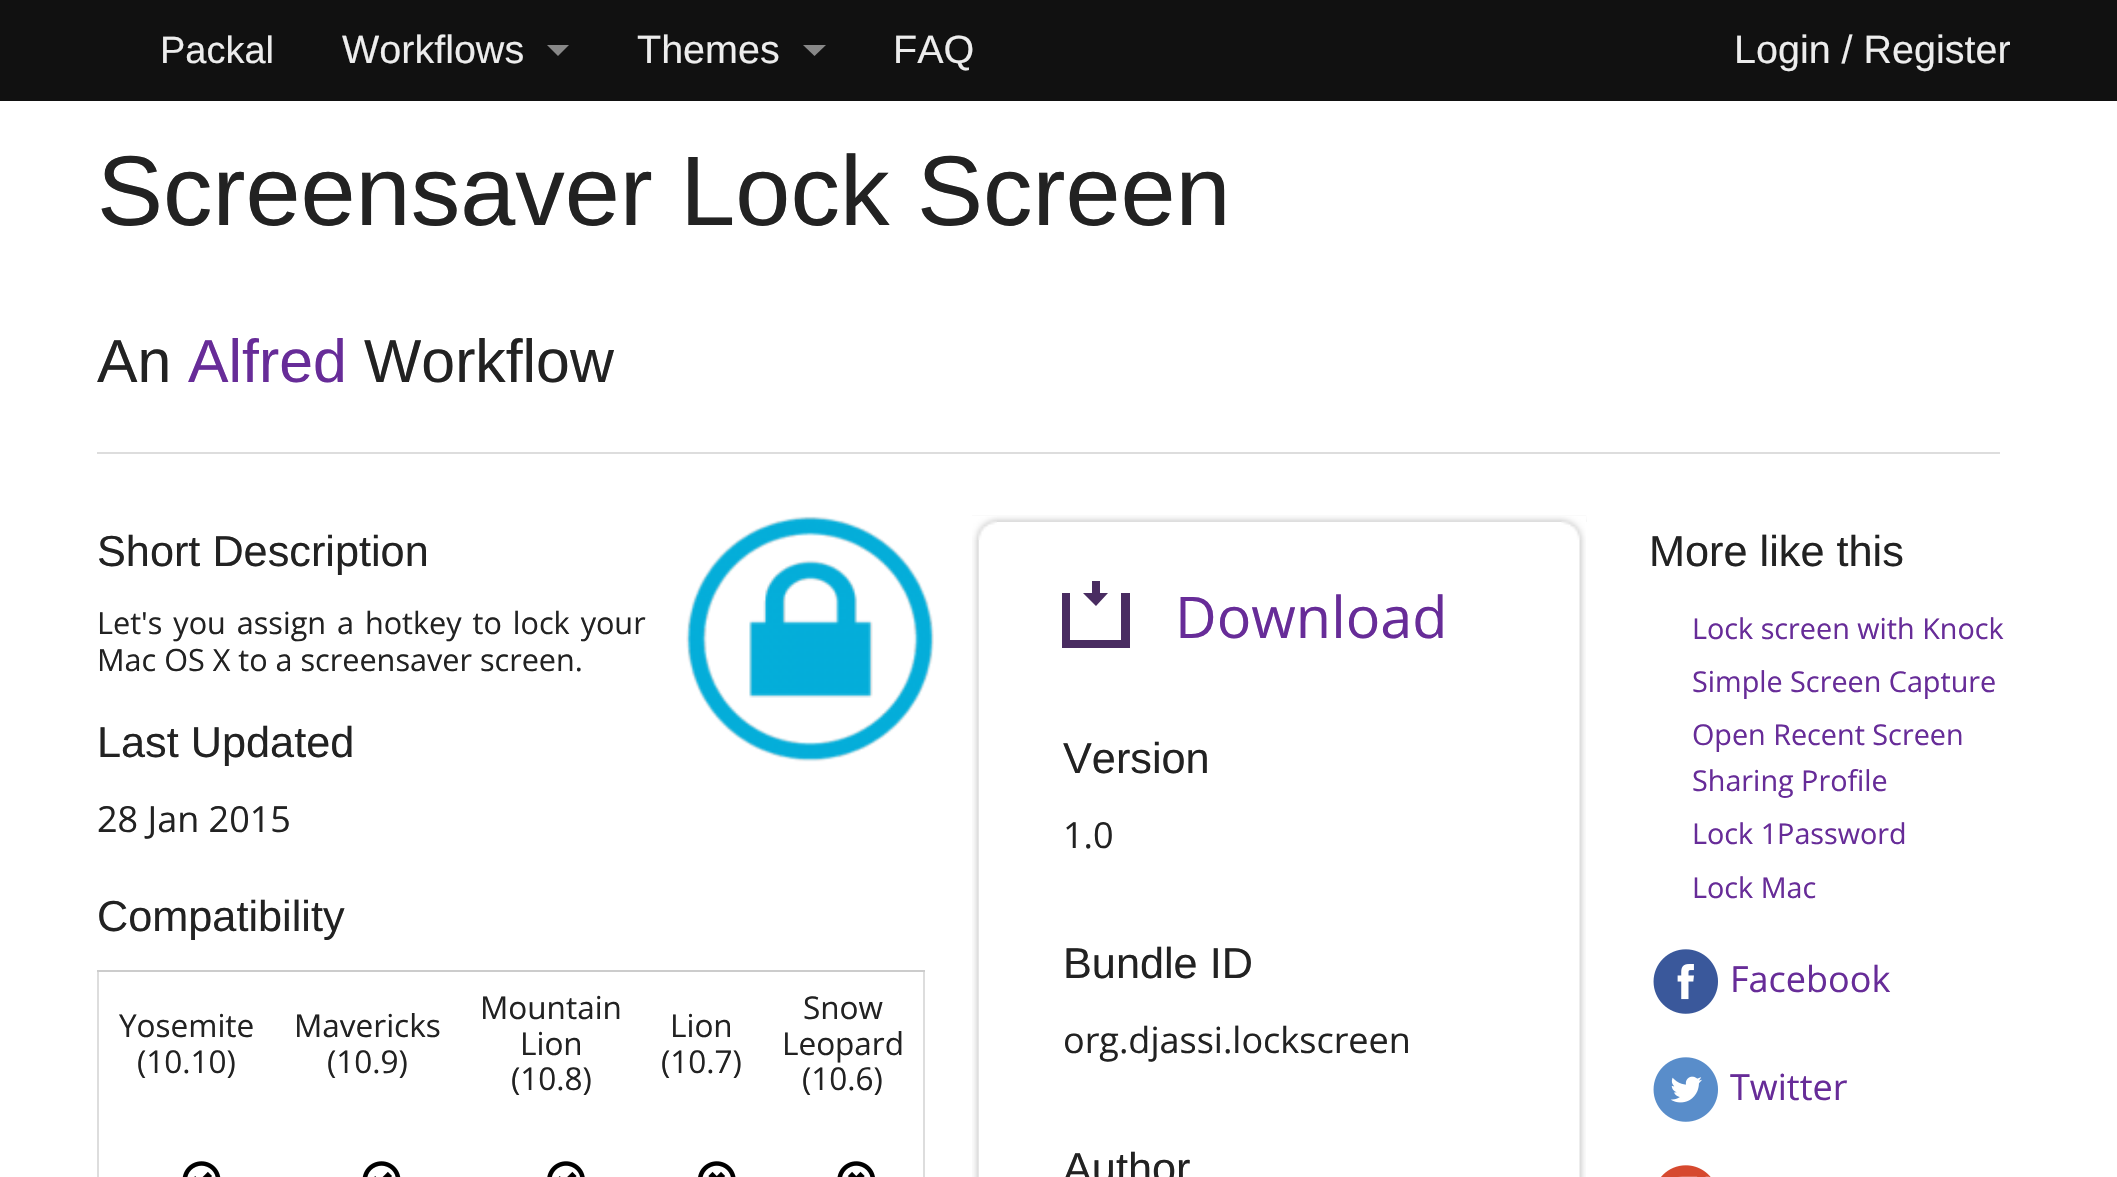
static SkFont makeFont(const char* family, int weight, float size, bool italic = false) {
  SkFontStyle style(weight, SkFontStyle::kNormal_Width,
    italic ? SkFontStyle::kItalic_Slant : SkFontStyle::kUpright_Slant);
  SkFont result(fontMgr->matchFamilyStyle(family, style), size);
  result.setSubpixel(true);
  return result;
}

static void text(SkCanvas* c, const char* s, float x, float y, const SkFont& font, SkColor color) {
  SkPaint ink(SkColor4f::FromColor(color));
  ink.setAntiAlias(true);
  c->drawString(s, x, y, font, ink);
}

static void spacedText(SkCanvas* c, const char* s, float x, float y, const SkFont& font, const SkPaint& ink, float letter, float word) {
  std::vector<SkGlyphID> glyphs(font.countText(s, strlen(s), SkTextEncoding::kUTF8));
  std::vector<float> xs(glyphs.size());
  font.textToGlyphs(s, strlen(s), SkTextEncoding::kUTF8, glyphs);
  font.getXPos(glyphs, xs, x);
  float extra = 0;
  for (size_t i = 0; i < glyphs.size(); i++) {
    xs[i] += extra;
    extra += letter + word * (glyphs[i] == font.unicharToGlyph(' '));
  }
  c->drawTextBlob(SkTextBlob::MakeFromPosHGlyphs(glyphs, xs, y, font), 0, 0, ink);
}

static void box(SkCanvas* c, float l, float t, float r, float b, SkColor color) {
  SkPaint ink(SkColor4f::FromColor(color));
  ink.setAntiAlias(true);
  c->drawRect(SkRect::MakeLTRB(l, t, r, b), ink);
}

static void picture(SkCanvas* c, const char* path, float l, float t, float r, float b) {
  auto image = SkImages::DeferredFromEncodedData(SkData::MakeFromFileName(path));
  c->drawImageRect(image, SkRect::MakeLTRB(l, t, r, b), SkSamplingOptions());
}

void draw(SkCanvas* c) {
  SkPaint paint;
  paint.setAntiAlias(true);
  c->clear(0xffffffff);
  box(c, 0, 0, 2117, 101, 0xff111111);
  SkFont face1 = makeFont("Liberation Sans", 400, 38);
  text(c, "Packal", 160, 63, face1, 0xffededed);
  SkFont face2 = makeFont("Liberation Sans", 400, 39.5f);
  text(c, "Workflows", 342, 63, face2, 0xffededed);
  paint.setColor(0xff888888);
  c->drawPath(SkPathBuilder().moveTo(547, 45).lineTo(569, 45).lineTo(558, 56).close().detach(), paint);
  text(c, "Themes", 637, 63, face2, 0xffededed);
  c->drawPath(SkPathBuilder().moveTo(803, 45).lineTo(826, 45).lineTo(814.5f, 56).close().detach(), paint);
  text(c, "FAQ", 893, 63, face2, 0xffededed);
  text(c, "Login / Register", 1734, 63, face2, 0xffededed);
  SkFont face3 = makeFont("Liberation Sans", 400, 99);
  text(c, "Screensaver Lock Screen", 97, 225, face3, 0xff222222);
  SkFont face4 = makeFont("Liberation Sans", 400, 60.75f);
  text(c, "An", 97, 382, face4, 0xff222222);
  text(c, "Alfred", 188, 382, face4, 0xff672c98);
  text(c, "Workflow", 364, 382, face4, 0xff222222);
  box(c, 97, 452, 2000, 454, 0xffdddddd);
  picture(c, "img_01.png", 686, 516, 934, 762);
  SkFont face5 = makeFont("Liberation Sans", 400, 43.25f);
  text(c, "Short Description", 97, 566, face5, 0xff222222);
  SkFont face6 = makeFont("Open Sans", 400, 30.6f);
  paint.setColor(0xff222222);
  spacedText(c, "Let's you assign a hotkey to lock your", 97, 634, face6, paint, 0, 3);
  text(c, "Mac OS X to a screensaver screen.", 97, 671, face6, 0xff222222);
  text(c, "Last Updated", 97, 757, face5, 0xff222222);
  SkFont face7 = makeFont("Open Sans", 400, 36);
  text(c, "28 Jan 2015", 97, 832, face7, 0xff222222);
  text(c, "Compatibility", 97, 931, face5, 0xff222222);
  box(c, 923, 970, 925, 1177, 0xffdddddd);
  box(c, 97, 970, 99, 1177, 0xffdddddd);
  box(c, 97, 970, 925, 972, 0xffcccccc);
  SkFont face8 = makeFont("Open Sans", 400, 31.5f);
  text(c, "Yosemite", 119, 1037, face8, 0xff222222);
  text(c, "(10.10)", 137, 1073, face8, 0xff222222);
  text(c, "Mavericks", 294, 1037, face8, 0xff222222);
  text(c, "(10.9)", 327, 1073, face8, 0xff222222);
  text(c, "Mountain", 480, 1019, face8, 0xff222222);
  text(c, "Lion", 520, 1055, face8, 0xff222222);
  text(c, "(10.8)", 511, 1090, face8, 0xff222222);
  text(c, "Lion", 670, 1037, face8, 0xff222222);
  text(c, "(10.7)", 661, 1073, face8, 0xff222222);
  text(c, "Snow", 803, 1019, face8, 0xff222222);
  text(c, "Leopard", 782, 1055, face8, 0xff222222);
  text(c, "(10.6)", 802, 1090, face8, 0xff222222);
  picture(c, "img_02.png", 182, 1161, 221, 1177);
  picture(c, "img_02.png", 362, 1161, 401, 1177);
  picture(c, "img_03.png", 547, 1161, 585, 1177);
  picture(c, "img_04.png", 698, 1161, 736, 1177);
  picture(c, "img_05.png", 837, 1161, 875, 1177);
  picture(c, "img_06.png", 972, 515, 1587, 522);
  picture(c, "img_07.png", 972, 516, 997, 540);
  picture(c, "img_08.png", 1561, 516, 1586, 540);
  picture(c, "img_09.png", 972, 540, 979, 1177);
  picture(c, "img_10.png", 1579, 540, 1586, 1177);
  c->save();
  c->clipRect(SkRect::MakeLTRB(1062, 581, 1130, 648));
  paint.setColor(0xff492c61);
  c->drawPath(SkPathBuilder().moveTo(1108, 593).lineTo(1100, 593).lineTo(1100, 580).lineTo(1092, 580).lineTo(1092, 593).lineTo(1083, 593).lineTo(1096, 606).close().moveTo(1121, 593).lineTo(1121, 640).lineTo(1070, 640).lineTo(1070, 593).lineTo(1062, 593).lineTo(1062, 648).lineTo(1130, 648).lineTo(1130, 593).close().detach(), paint);
  c->restore();
  SkFont face9 = makeFont("Open Sans", 400, 57.5f);
  text(c, "Download", 1175, 638, face9, 0xff672c98);
  text(c, "Version", 1063, 773, face5, 0xff222222);
  text(c, "1.0", 1063, 848, face7, 0xff222222);
  text(c, "Bundle ID", 1063, 978, face5, 0xff222222);
  text(c, "org.djassi.lockscreen", 1063, 1053, face7, 0xff222222);
  text(c, "Author", 1063, 1183, face5, 0xff222222);
  text(c, "More like this", 1649, 566, face5, 0xff222222);
  SkFont face10 = makeFont("Open Sans", 400, 28.75f);
  text(c, "Lock screen with Knock", 1692, 639, face10, 0xff672c98);
  text(c, "Simple Screen Capture", 1692, 692, face10, 0xff672c98);
  text(c, "Open Recent Screen", 1692, 745, face10, 0xff672c98);
  text(c, "Sharing Profile", 1692, 791, face10, 0xff672c98);
  text(c, "Lock 1Password", 1692, 844, face10, 0xff672c98);
  text(c, "Lock Mac", 1692, 898, face10, 0xff672c98);
  picture(c, "img_11.png", 1653, 949, 1718, 1014);
  text(c, "Facebook", 1730, 992, face7, 0xff672c98);
  picture(c, "img_12.png", 1653, 1057, 1718, 1122);
  text(c, "Twitter", 1730, 1100, face7, 0xff672c98);
  picture(c, "img_13.png", 1661, 1165, 1711, 1177);
}
